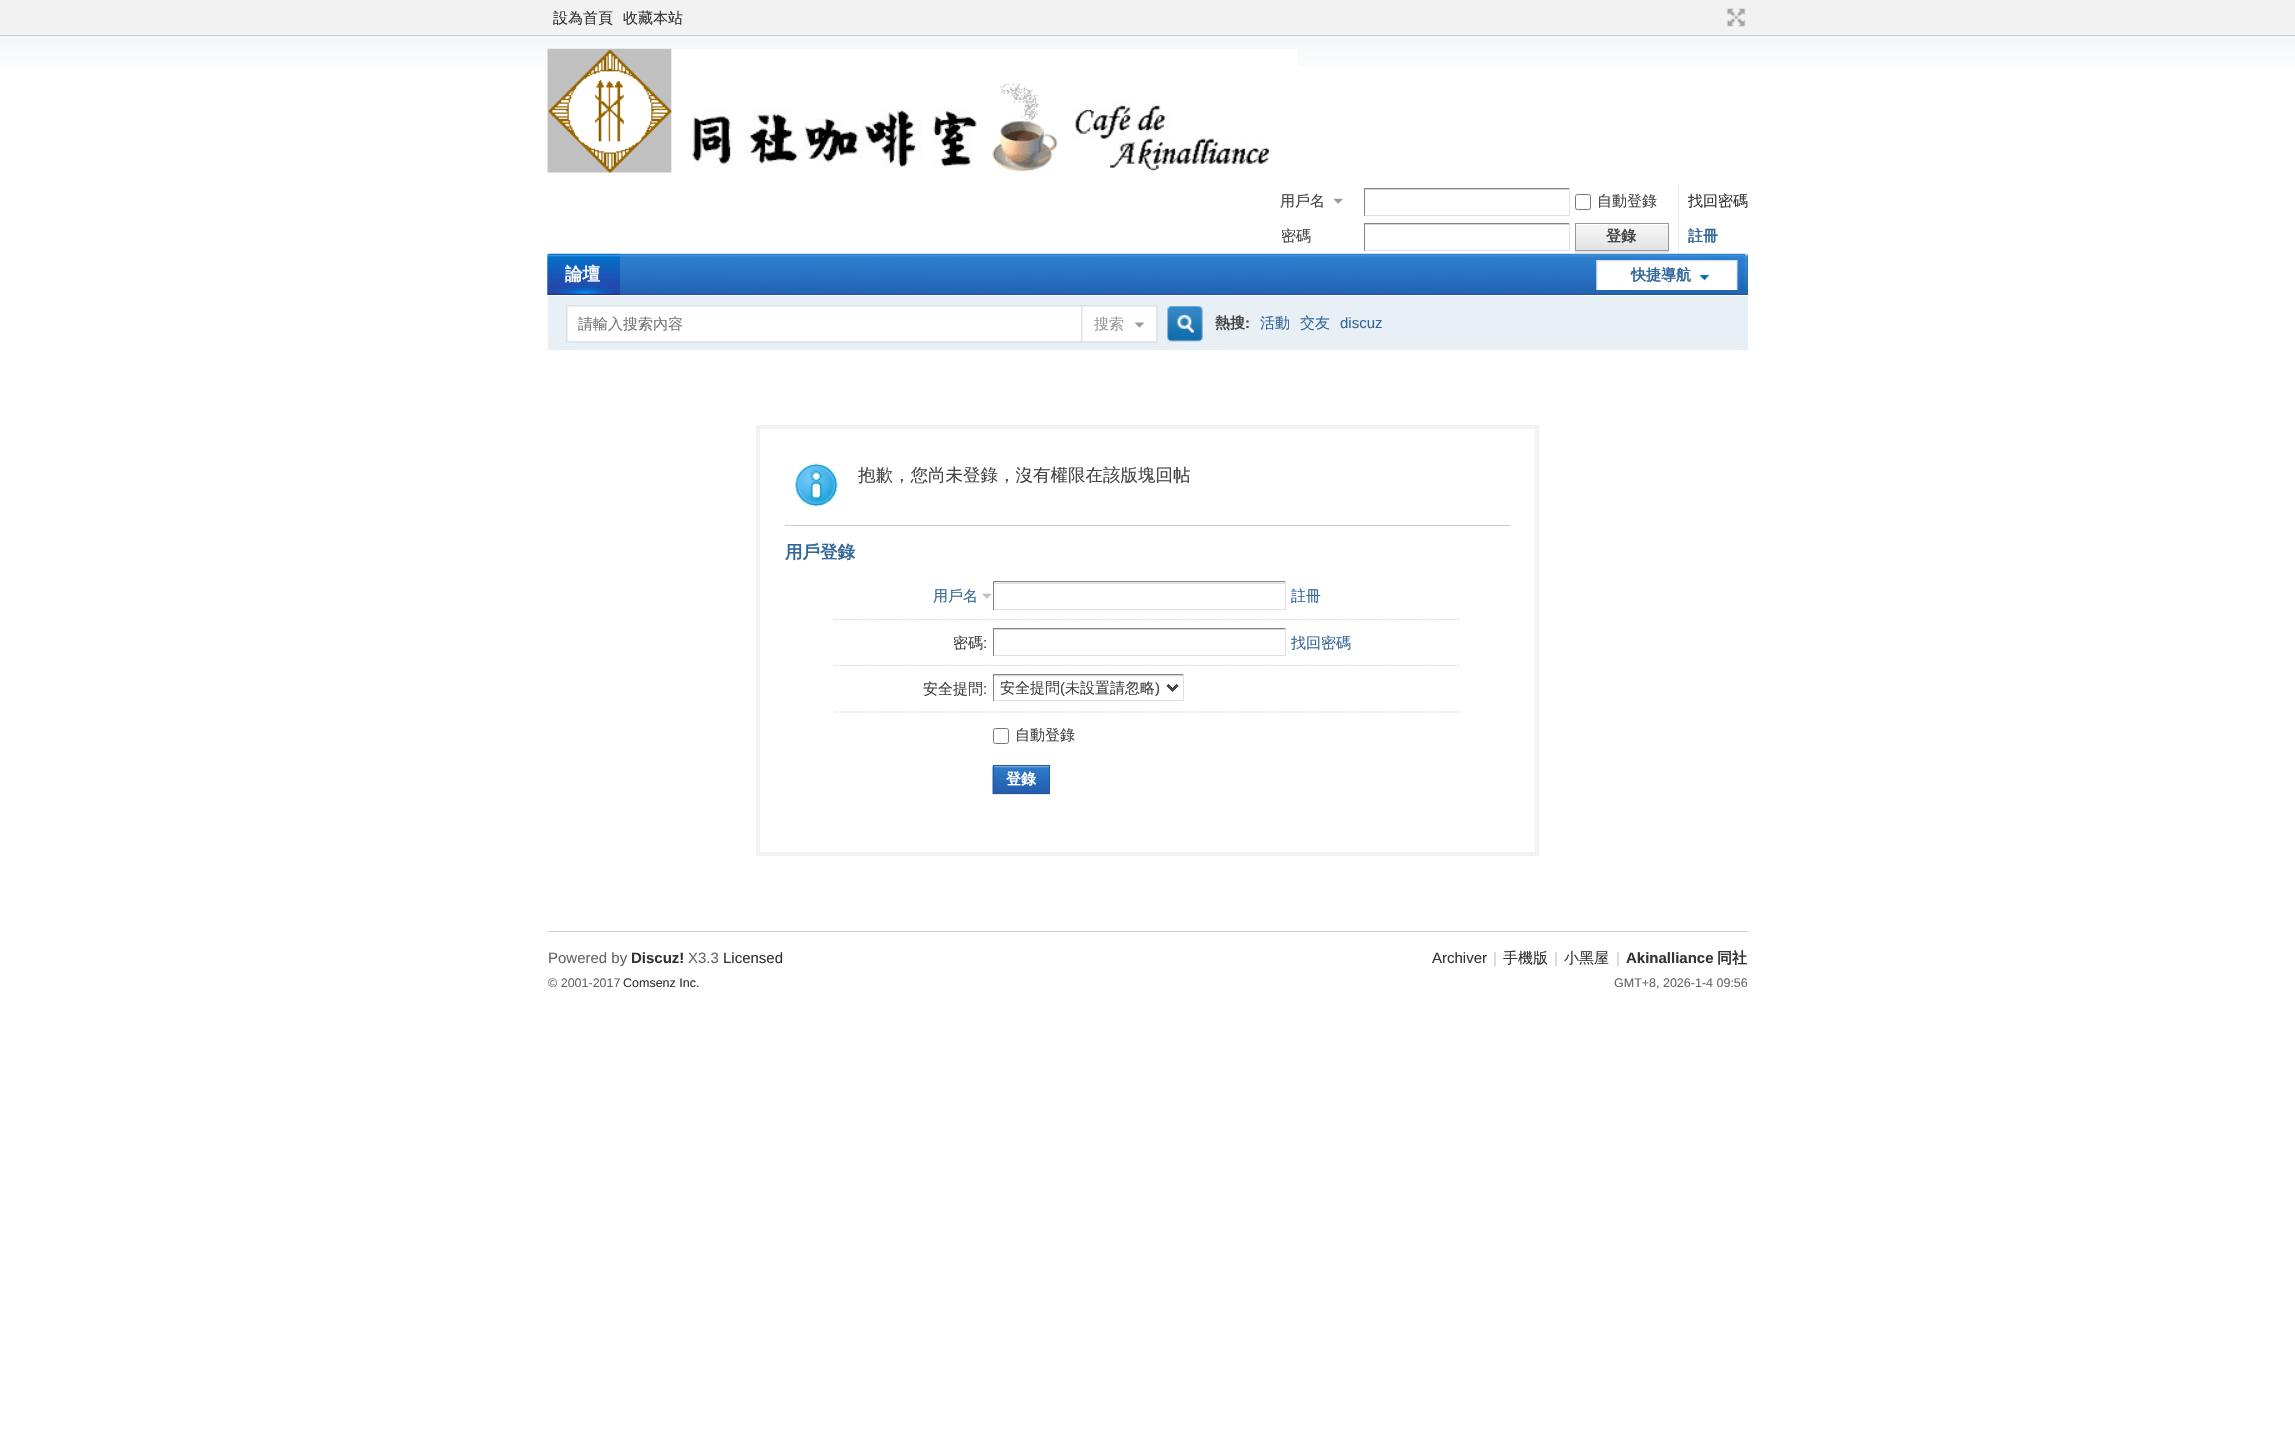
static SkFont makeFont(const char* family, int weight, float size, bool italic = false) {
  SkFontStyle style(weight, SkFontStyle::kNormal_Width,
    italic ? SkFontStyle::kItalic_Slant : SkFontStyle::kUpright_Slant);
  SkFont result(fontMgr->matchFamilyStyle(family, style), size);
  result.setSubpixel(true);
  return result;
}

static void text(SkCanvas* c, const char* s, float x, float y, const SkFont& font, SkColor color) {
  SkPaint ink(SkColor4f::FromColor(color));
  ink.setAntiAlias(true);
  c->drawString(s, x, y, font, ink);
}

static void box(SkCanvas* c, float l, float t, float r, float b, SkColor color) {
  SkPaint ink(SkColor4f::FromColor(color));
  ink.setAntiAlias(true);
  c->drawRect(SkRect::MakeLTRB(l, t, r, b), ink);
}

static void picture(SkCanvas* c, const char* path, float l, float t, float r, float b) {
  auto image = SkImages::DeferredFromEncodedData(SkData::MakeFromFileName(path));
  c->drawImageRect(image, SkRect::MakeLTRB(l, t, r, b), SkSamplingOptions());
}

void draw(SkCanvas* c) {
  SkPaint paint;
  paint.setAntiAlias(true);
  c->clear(0xffffffff);
  picture(c, "img_01.png", 0, 36, 2295, 67);
  box(c, 0, 0, 2295, 35, 0xfff2f2f2);
  box(c, 0, 35, 2295, 36, 0xffcdcdcd);
  SkFont face1 = makeFont("WenQuanYi Zen Hei", 500, 15);
  text(c, "設為首頁", 553, 23, face1, 0xff333333);
  text(c, "收藏本站", 623, 23, face1, 0xff333333);
  picture(c, "img_02.png", 1726, 8, 1746, 27);
  picture(c, "img_03.png", 547, 48, 1298, 173);
  picture(c, "img_04.png", 1333, 198, 1343, 204);
  text(c, "用戶名", 1280, 206, face1, 0xff444444);
  picture(c, "img_05.png", 1363, 188, 1569, 190);
  box(c, 1364, 188, 1570, 189, 0xff848484);
  box(c, 1569, 188, 1570, 216, 0xffe0e0e0);
  box(c, 1364, 215, 1570, 216, 0xffe0e0e0);
  box(c, 1364, 188, 1365, 216, 0xff848484);
  paint.setStyle(SkPaint::kStroke_Style);
  paint.setStrokeWidth(1);
  paint.setColor(0xff767676);
  c->drawRoundRect(SkRect::MakeLTRB(1575.5f, 194.5f, 1590.5f, 209.5f), 2, 2, paint);
  text(c, "自動登錄", 1597, 206, face1, 0xff444444);
  text(c, "找回密碼", 1688, 206, face1, 0xff333333);
  text(c, "密碼", 1281, 241, face1, 0xff444444);
  picture(c, "img_05.png", 1363, 223, 1569, 225);
  box(c, 1364, 223, 1570, 224, 0xff848484);
  box(c, 1569, 223, 1570, 251, 0xffe0e0e0);
  box(c, 1364, 250, 1570, 251, 0xffe0e0e0);
  box(c, 1364, 223, 1365, 251, 0xff848484);
  box(c, 1678, 184, 1679, 255, 0xffe5edf2);
  paint.setStyle(SkPaint::kFill_Style);
  paint.setColor(0xffe5e5e5);
  c->drawPath(SkPathBuilder().moveTo(1575, 251).lineTo(1575, 253).lineTo(1669, 253).lineTo(1669, 224).lineTo(1669, 251).close().detach(), paint);
  picture(c, "img_06.png", 1576, 224, 1668, 250);
  paint.setStyle(SkPaint::kStroke_Style);
  paint.setColor(0xff999999);
  c->drawRect(SkRect::MakeLTRB(1575.5f, 223.5f, 1668.5f, 250.5f), paint);
  SkFont face2 = makeFont("WenQuanYi Zen Hei", 700, 15);
  text(c, "登錄", 1606, 241, face2, 0xff444444);
  text(c, "註冊", 1688, 241, face2, 0xff336699);
  box(c, 1747, 254, 1748, 295, 0xff2b7acd);
  picture(c, "img_07.png", 547, 253, 1748, 295);
  picture(c, "img_08.png", 547, 253, 620, 295);
  SkFont face3 = makeFont("WenQuanYi Zen Hei", 700, 17.5f);
  text(c, "論壇", 565, 280, face3, 0xffffffff);
  picture(c, "img_09.png", 1596, 260, 1738, 290);
  text(c, "快捷導航", 1631, 280, face2, 0xff336699);
  box(c, 548, 296, 1748, 350, 0xffe8eff5);
  picture(c, "img_10.png", 547, 297, 574, 348);
  picture(c, "img_11.png", 574, 305, 1082, 343);
  c->save();
  c->clipRect(SkRect::MakeLTRB(578, 315, 1078, 336));
  text(c, "請輸入搜索內容", 578, 329, face1, 0xff757575);
  c->restore();
  picture(c, "img_12.png", 1081, 305, 1158, 343);
  text(c, "搜索", 1094, 329, face1, 0xff999999);
  picture(c, "img_13.png", 1167, 306, 1203, 342);
  text(c, "熱搜", 1215, 328, face2, 0xff444444);
  SkFont face4 = makeFont("Liberation Sans", 700, 15);
  text(c, ":", 1245, 328, face4, 0xff444444);
  text(c, "活動", 1260, 328, face1, 0xff336699);
  text(c, "交友", 1300, 328, face1, 0xff336699);
  SkFont face5 = makeFont("Liberation Sans", 400, 15);
  text(c, "discuz", 1340, 328, face5, 0xff336699);
  paint.setStrokeWidth(4);
  paint.setColor(0xfff2f2f2);
  c->drawRect(SkRect::MakeLTRB(758, 427, 1537, 854), paint);
  picture(c, "img_14.png", 795, 463, 838, 507);
  SkFont face6 = makeFont("WenQuanYi Zen Hei", 500, 17.5f);
  text(c, "抱歉，您尚未登錄，沒有權限在該版塊回帖", 858, 481, face6, 0xff444444);
  box(c, 785, 525, 1510, 526, 0xffcdcdcd);
  text(c, "用戶登錄", 785, 558, face3, 0xff336699);
  paint.setStrokeWidth(1.2f);
  paint.setColor(0xffcdcdcd);
  paint.setPathEffect(SkDashPathEffect::Make({{1.25f, 1.25f}}, 0));
  c->drawPath(SkPathBuilder().moveTo(835, 619.5f).lineTo(1460, 619.5f).detach(), paint);
  paint.setPathEffect(nullptr);
  text(c, "用戶名", 933, 601, face1, 0xff336699);
  picture(c, "img_15.png", 982, 593, 992, 599);
  picture(c, "img_16.png", 992, 582, 1287, 584);
  box(c, 993, 581, 1286, 582, 0xff848484);
  box(c, 1285, 581, 1286, 610, 0xffe0e0e0);
  box(c, 993, 609, 1286, 610, 0xffe0e0e0);
  box(c, 993, 581, 994, 610, 0xff848484);
  text(c, "註冊", 1291, 601, face1, 0xff336699);
  paint.setPathEffect(SkDashPathEffect::Make({{1.25f, 1.25f}}, 0));
  c->drawPath(SkPathBuilder().moveTo(835, 665.5f).lineTo(1460, 665.5f).detach(), paint);
  paint.setPathEffect(nullptr);
  text(c, "密碼", 953, 648, face1, 0xff444444);
  text(c, ":", 983, 648, face5, 0xff444444);
  picture(c, "img_17.png", 992, 628, 1287, 630);
  box(c, 993, 628, 1286, 629, 0xff848484);
  box(c, 1285, 628, 1286, 656, 0xffe0e0e0);
  box(c, 993, 655, 1286, 656, 0xffe0e0e0);
  box(c, 993, 628, 994, 656, 0xff848484);
  text(c, "找回密碼", 1291, 648, face1, 0xff336699);
  paint.setPathEffect(SkDashPathEffect::Make({{1.25f, 1.25f}}, 0));
  c->drawPath(SkPathBuilder().moveTo(835, 712).lineTo(1460, 712).detach(), paint);
  paint.setPathEffect(nullptr);
  text(c, "安全提問", 923, 694, face1, 0xff444444);
  text(c, ":", 983, 694, face5, 0xff444444);
  picture(c, "img_18.png", 992, 675, 1183, 692);
  box(c, 993, 674, 1184, 675, 0xff848484);
  box(c, 1183, 674, 1184, 701, 0xffe0e0e0);
  box(c, 993, 700, 1184, 701, 0xffe0e0e0);
  box(c, 993, 674, 994, 701, 0xff848484);
  paint.setStrokeWidth(2.5f);
  paint.setColor(0xff444444);
  c->drawPath(SkPathBuilder().moveTo(1167.5f, 685).lineTo(1172.5f, 690).lineTo(1177.5f, 685).detach(), paint);
  text(c, "安全提問", 1000, 693, face1, 0xff444444);
  text(c, "(", 1060, 693, face5, 0xff444444);
  text(c, "未設置請忽略", 1065, 693, face1, 0xff444444);
  text(c, ")", 1155, 693, face5, 0xff444444);
  paint.setStrokeWidth(1);
  paint.setColor(0xff767676);
  c->drawRoundRect(SkRect::MakeLTRB(993.5f, 728.5f, 1008.5f, 743.5f), 2, 2, paint);
  text(c, "自動登錄", 1015, 740, face1, 0xff444444);
  box(c, 993, 794, 1050, 795, 0xffe5e5e5);
  picture(c, "img_19.png", 992, 765, 1049, 794);
  paint.setColor(0xff235994);
  c->drawRect(SkRect::MakeLTRB(993.5f, 765.5f, 1049.5f, 793.5f), paint);
  text(c, "登錄", 1006, 784, face2, 0xffffffff);
  box(c, 548, 931, 1748, 932, 0xffcdcdcd);
  text(c, "Powered by", 548, 963, face5, 0xff666666);
  text(c, "Discuz!", 631, 963, face4, 0xff333333);
  text(c, "X3.3", 688, 963, face5, 0xff666666);
  text(c, "Licensed", 723, 963, face5, 0xff333333);
  SkFont face7 = makeFont("Liberation Sans", 400, 12.5f);
  text(c, "© 2001-2017", 548, 987, face7, 0xff666666);
  text(c, "Comsenz Inc.", 623, 987, face7, 0xff333333);
  text(c, "Archiver", 1432, 963, face5, 0xff333333);
  text(c, "|", 1493, 963, face5, 0xffcccccc);
  text(c, "手機版", 1503, 963, face1, 0xff333333);
  text(c, "|", 1554, 963, face5, 0xffcccccc);
  text(c, "小黑屋", 1564, 963, face1, 0xff333333);
  text(c, "|", 1616, 963, face5, 0xffcccccc);
  text(c, "Akinalliance", 1626, 963, face4, 0xff333333);
  text(c, "同社", 1717, 963, face2, 0xff333333);
  text(c, "GMT+8, 2026-1-4 09:56", 1614, 987, face7, 0xff666666);
}
